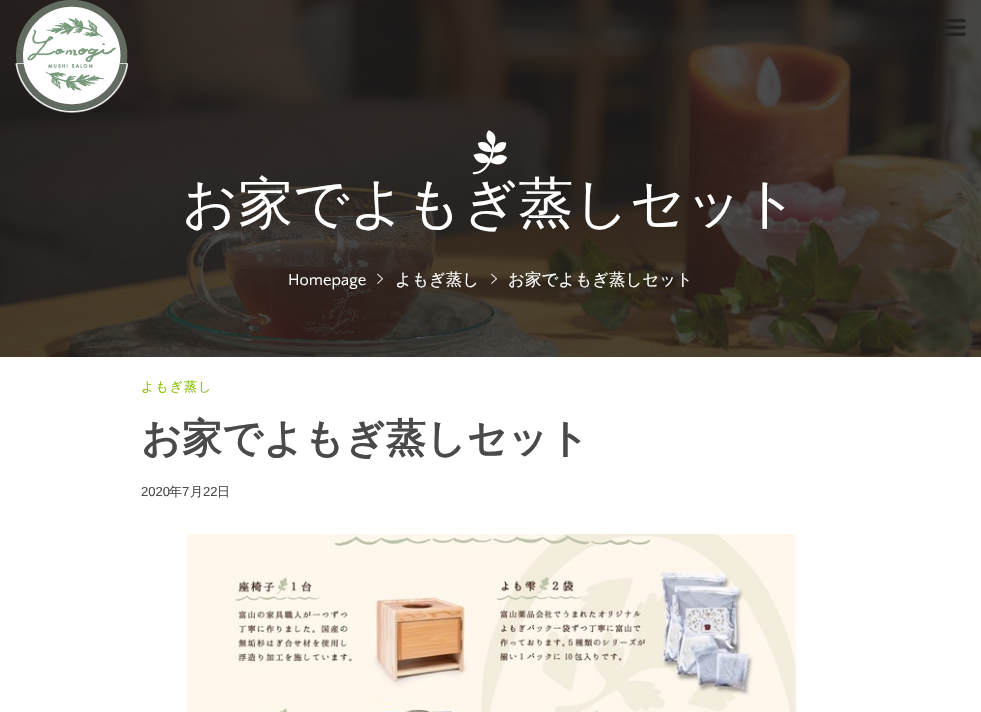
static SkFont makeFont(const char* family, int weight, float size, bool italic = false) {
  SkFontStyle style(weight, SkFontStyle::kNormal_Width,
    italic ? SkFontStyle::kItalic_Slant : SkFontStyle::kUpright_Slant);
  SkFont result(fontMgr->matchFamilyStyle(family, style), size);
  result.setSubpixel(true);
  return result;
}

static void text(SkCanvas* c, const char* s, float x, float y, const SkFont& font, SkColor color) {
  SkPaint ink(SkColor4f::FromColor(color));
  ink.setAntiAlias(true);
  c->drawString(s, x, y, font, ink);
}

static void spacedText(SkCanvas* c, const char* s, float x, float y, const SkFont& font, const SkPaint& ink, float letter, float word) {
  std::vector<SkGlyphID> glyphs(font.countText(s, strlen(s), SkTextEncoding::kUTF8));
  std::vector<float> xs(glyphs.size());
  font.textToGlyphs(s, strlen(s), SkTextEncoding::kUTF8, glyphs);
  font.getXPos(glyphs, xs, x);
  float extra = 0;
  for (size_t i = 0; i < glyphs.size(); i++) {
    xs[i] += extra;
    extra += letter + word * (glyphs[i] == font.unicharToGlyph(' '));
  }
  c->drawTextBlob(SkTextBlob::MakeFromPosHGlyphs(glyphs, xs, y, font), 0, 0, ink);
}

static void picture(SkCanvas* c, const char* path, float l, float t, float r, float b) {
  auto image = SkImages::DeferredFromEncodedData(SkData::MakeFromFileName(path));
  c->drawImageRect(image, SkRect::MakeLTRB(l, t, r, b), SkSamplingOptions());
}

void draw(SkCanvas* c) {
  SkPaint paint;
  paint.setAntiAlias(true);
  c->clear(0xffffffff);
  picture(c, "img_03.png", 0, 0, 981, 357);
  picture(c, "img_01.png", 15, 0, 128, 113);
  picture(c, "img_02.png", 945, 18, 966, 36);
  picture(c, "img_04.png", 472, 130, 508, 175);
  SkFont face1 = makeFont("WenQuanYi Zen Hei", 500, 55);
  text(c, "お家でよもぎ蒸しセット", 182, 222, face1, 0xffffffff);
  SkFont face2 = makeFont("Quattrocento Sans", 400, 16.5f);
  text(c, "Homepage", 288, 285, face2, 0xffffffff);
  picture(c, "img_05.png", 377, 273, 384, 284);
  SkFont face3 = makeFont("WenQuanYi Zen Hei", 500, 16.5f);
  text(c, "よもぎ蒸し", 395, 285, face3, 0xffffffff);
  picture(c, "img_06.png", 491, 273, 498, 284);
  text(c, "お家でよもぎ蒸しセット", 508, 285, face3, 0xffffffff);
  SkFont face4 = makeFont("WenQuanYi Zen Hei", 500, 13);
  paint.setColor(0xff88c000);
  spacedText(c, "よもぎ蒸し", 141, 391, face4, paint, 1, 0);
  SkFont face5 = makeFont("WenQuanYi Zen Hei", 700, 40);
  text(c, "お家でよもぎ蒸しセット", 141, 452, face5, 0xff4a4a4a);
  SkFont face6 = makeFont("Liberation Sans", 400, 13);
  text(c, "2020", 141, 496, face6, 0xff4a4a4a);
  text(c, "年", 169, 496, face4, 0xff4a4a4a);
  text(c, "7", 182, 496, face6, 0xff4a4a4a);
  text(c, "月", 190, 496, face4, 0xff4a4a4a);
  text(c, "22", 203, 496, face6, 0xff4a4a4a);
  text(c, "日", 217, 496, face4, 0xff4a4a4a);
  picture(c, "img_07.png", 186, 534, 798, 712);
}
